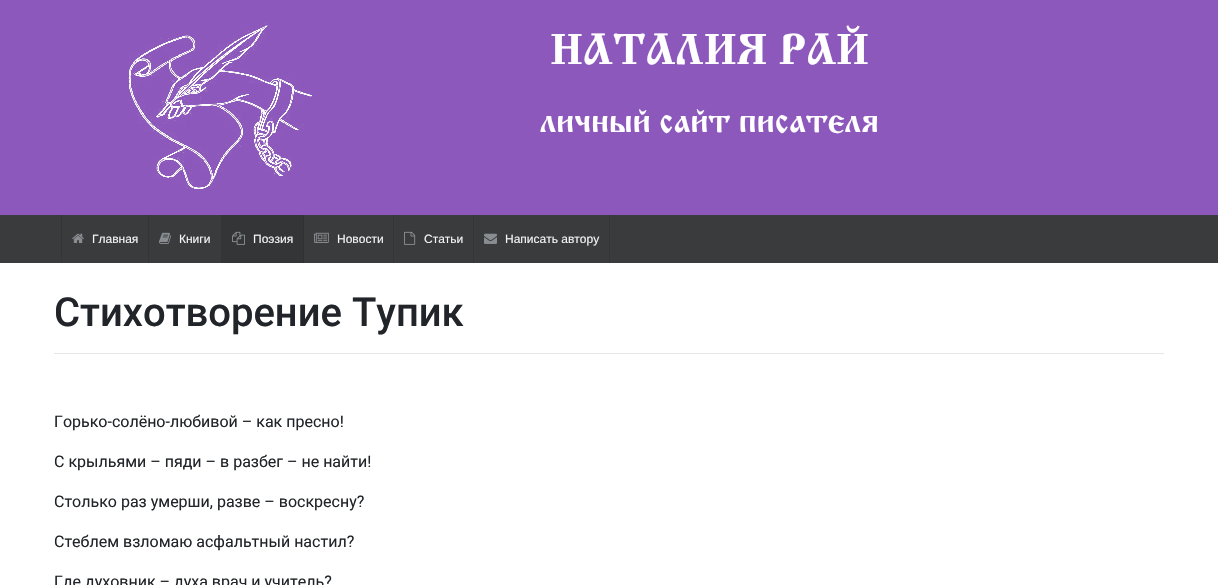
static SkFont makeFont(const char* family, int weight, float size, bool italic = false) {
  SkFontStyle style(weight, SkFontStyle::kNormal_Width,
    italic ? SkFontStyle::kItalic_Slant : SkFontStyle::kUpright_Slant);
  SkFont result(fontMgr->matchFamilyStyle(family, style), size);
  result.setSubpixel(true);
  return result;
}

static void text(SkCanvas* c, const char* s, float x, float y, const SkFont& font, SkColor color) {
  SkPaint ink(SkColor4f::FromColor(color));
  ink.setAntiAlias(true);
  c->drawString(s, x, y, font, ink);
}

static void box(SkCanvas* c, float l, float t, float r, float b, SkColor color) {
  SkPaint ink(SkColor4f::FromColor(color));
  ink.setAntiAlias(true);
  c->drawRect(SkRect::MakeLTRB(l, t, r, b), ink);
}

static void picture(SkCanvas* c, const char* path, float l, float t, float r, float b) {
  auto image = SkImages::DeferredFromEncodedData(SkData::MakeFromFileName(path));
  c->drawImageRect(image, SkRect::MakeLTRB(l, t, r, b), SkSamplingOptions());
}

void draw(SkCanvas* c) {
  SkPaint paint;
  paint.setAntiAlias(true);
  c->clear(0xffffffff);
  box(c, 0, 0, 1218, 215, 0xff8d58bc);
  picture(c, "img_01.png", 128, 21, 312, 189);
  SkFont face1 = makeFont("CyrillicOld", 700, 45);
  text(c, "НАТАЛИЯ РАЙ", 550, 64, face1, 0xffffffff);
  SkFont face2 = makeFont("CyrillicOld", 700, 36);
  text(c, "личный сайт писателя", 540, 132, face2, 0xffffffff);
  box(c, 0, 215, 1218, 263, 0xff393b3c);
  box(c, 61, 215, 62, 263, 0xff333536);
  box(c, 148, 215, 149, 263, 0xff333536);
  picture(c, "img_02.png", 72, 233, 84, 243);
  SkFont face3 = makeFont("Liberation Sans", 400, 12);
  text(c, "Главная", 92, 243, face3, 0xfff5f5f5);
  box(c, 221, 215, 303, 263, 0xff333536);
  picture(c, "img_03.png", 159, 232, 171, 244);
  text(c, "Книги", 179, 243, face3, 0xfff5f5f5);
  box(c, 303, 215, 304, 263, 0xff2e3031);
  picture(c, "img_04.png", 232, 231, 245, 245);
  text(c, "Поэзия", 253, 243, face3, 0xfff5f5f5);
  box(c, 393, 215, 394, 263, 0xff333536);
  picture(c, "img_05.png", 314, 232, 329, 243);
  text(c, "Новости", 337, 243, face3, 0xfff5f5f5);
  box(c, 473, 215, 474, 263, 0xff333536);
  picture(c, "img_06.png", 404, 231, 416, 245);
  text(c, "Статьи", 424, 243, face3, 0xfff5f5f5);
  box(c, 609, 215, 610, 263, 0xff333536);
  picture(c, "img_07.png", 484, 233, 497, 244);
  text(c, "Написать автору", 505, 243, face3, 0xfff5f5f5);
  SkFont face4 = makeFont("Roboto", 500, 40);
  text(c, "Стихотворение Тупик", 54, 326, face4, 0xff212529);
  box(c, 54, 353, 1164, 354, 0xffe6e6e6);
  SkFont face5 = makeFont("Roboto", 400, 16);
  text(c, "Горько-солёно-любивой – как пресно!", 54, 427, face5, 0xff212529);
  text(c, "С крыльями – пяди – в разбег – не найти!", 54, 467, face5, 0xff212529);
  text(c, "Столько раз умерши, разве – воскресну?", 54, 507, face5, 0xff212529);
  text(c, "Стеблем взломаю асфальтный настил?", 54, 547, face5, 0xff212529);
  text(c, "Где духовник – духа врач и учитель?", 54, 587, face5, 0xff212529);
}
